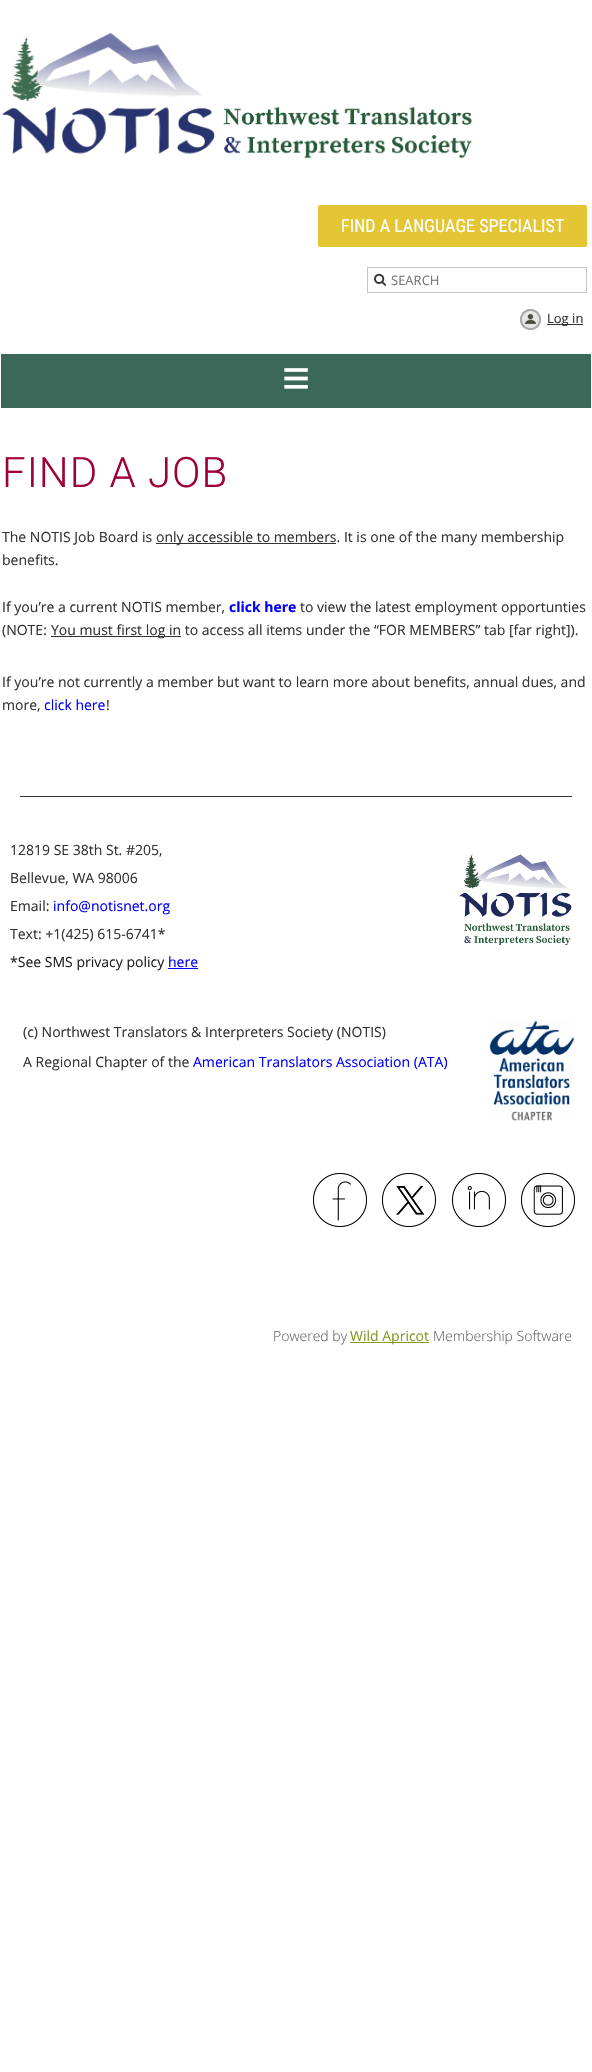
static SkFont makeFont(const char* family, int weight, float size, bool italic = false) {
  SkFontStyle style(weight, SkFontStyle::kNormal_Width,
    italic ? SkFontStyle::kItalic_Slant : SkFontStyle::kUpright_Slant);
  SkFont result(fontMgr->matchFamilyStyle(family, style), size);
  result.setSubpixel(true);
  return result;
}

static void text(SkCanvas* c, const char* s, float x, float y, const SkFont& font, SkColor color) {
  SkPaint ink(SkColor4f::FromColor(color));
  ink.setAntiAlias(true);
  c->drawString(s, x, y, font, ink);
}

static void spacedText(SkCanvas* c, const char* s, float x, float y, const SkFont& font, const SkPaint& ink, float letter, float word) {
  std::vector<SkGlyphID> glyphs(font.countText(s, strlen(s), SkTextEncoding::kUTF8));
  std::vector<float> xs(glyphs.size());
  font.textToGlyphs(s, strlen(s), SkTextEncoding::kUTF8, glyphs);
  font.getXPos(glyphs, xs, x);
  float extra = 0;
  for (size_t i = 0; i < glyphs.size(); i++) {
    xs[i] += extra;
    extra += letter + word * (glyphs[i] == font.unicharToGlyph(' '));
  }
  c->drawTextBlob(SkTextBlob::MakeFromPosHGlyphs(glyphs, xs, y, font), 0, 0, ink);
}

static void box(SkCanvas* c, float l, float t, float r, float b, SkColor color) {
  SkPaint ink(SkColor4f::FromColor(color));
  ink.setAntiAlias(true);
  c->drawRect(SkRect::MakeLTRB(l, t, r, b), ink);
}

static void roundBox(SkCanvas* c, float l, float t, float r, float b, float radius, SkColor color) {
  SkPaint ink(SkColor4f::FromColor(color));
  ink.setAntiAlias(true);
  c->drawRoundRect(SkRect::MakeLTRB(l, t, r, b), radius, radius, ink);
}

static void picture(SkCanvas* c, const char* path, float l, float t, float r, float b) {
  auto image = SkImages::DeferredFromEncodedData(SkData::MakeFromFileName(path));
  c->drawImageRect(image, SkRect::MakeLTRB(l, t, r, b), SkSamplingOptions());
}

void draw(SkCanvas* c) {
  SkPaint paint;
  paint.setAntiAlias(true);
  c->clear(0xffffffff);
  picture(c, "img_01.png", 2, 32, 472, 159);
  roundBox(c, 318, 205, 587, 247, 2, 0xffe4c635);
  SkFont face1 = makeFont("Roboto Condensed", 400, 18);
  text(c, "FIND A LANGUAGE SPECIALIST", 341, 232, face1, 0xffffffff);
  paint.setStyle(SkPaint::kStroke_Style);
  paint.setStrokeWidth(1);
  paint.setColor(0xffc6c6c6);
  c->drawRect(SkRect::MakeLTRB(367.5f, 267.5f, 586.5f, 292.5f), paint);
  picture(c, "img_02.png", 374, 273, 386, 286);
  SkFont face2 = makeFont("Open Sans", 400, 13);
  text(c, "SEARCH", 391, 285, face2, 0xff757575);
  picture(c, "img_03.png", 520, 309, 541, 330);
  box(c, 547, 324, 583, 325, 0xff333333);
  text(c, "Log in", 547, 323, face2, 0xff333333);
  box(c, 1, 354, 591, 408, 0xff3c685a);
  SkFont face3 = makeFont("Liberation Serif", 700, 50);
  text(c, "≡", 282, 395, face3, 0xffffffff);
  SkFont face4 = makeFont("Roboto", 300, 42);
  paint.setStyle(SkPaint::kFill_Style);
  paint.setColor(0xff9e0039);
  spacedText(c, "FIND A JOB", 2, 487, face4, paint, 1, 0);
  SkFont face5 = makeFont("Open Sans", 400, 14);
  text(c, "The NOTIS Job Board is", 2, 542, face5, 0xff333333);
  box(c, 156, 543, 336, 544, 0xff333333);
  text(c, "only accessible to members. It is one of the many membership", 156, 542, face5, 0xff333333);
  text(c, "benefits.", 2, 565, face5, 0xff333333);
  text(c, "If you’re a current NOTIS member,", 2, 612, face5, 0xff333333);
  SkFont face6 = makeFont("Open Sans", 700, 14);
  text(c, "click here", 229, 612, face6, 0xff0000ff);
  text(c, "to view the latest employment opportunties", 300, 612, face5, 0xff333333);
  text(c, "(NOTE:", 2, 635, face5, 0xff333333);
  box(c, 51, 636, 181, 637, 0xff333333);
  text(c, "You must first log in to access all items under the “FOR MEMBERS” tab [far right]).", 51, 635, face5, 0xff333333);
  text(c, "If you’re not currently a member but want to learn more about benefits, annual dues, and", 2, 687, face5, 0xff333333);
  text(c, "more,", 2, 710, face5, 0xff333333);
  text(c, "click here", 44, 710, face5, 0xff0000ff);
  text(c, "!", 106, 710, face5, 0xff333333);
  box(c, 20, 796, 572, 797, 0xff333333);
  text(c, "12819 SE 38th St. #205,", 10, 855, face5, 0xff333333);
  text(c, "Bellevue, WA 98006", 10, 883, face5, 0xff333333);
  picture(c, "img_04.png", 459, 854, 572, 945);
  text(c, "Email:", 10, 911, face5, 0xff333333);
  text(c, "info@notisnet.org", 53, 911, face5, 0xff0000ff);
  text(c, "Text: +1(425) 615-6741*", 10, 939, face5, 0xff333333);
  text(c, "*See SMS privacy policy", 10, 967, face5, 0xff202124);
  box(c, 168, 968, 198, 969, 0xff0000ff);
  text(c, "here", 168, 967, face5, 0xff0000ff);
  text(c, "(c) Northwest Translators & Interpreters Society (NOTIS)", 23, 1037, face5, 0xff333333);
  picture(c, "img_05.png", 489, 1020, 575, 1121);
  text(c, "A Regional Chapter of the", 23, 1067, face5, 0xff333333);
  text(c, "American Translators Association (ATA)", 193, 1067, face5, 0xff0000ff);
  picture(c, "img_06.png", 313, 1173, 367, 1227);
  picture(c, "img_07.png", 382, 1173, 436, 1227);
  picture(c, "img_08.png", 452, 1173, 506, 1227);
  picture(c, "img_09.png", 521, 1173, 575, 1227);
  SkFont face7 = makeFont("Open Sans", 300, 14);
  text(c, "Powered by", 273, 1341, face7, 0xff646464);
  box(c, 350, 1342, 429, 1343, 0xff839924);
  text(c, "Wild Apricot", 350, 1341, face5, 0xff839924);
  text(c, "Membership Software", 433, 1341, face7, 0xff646464);
}
